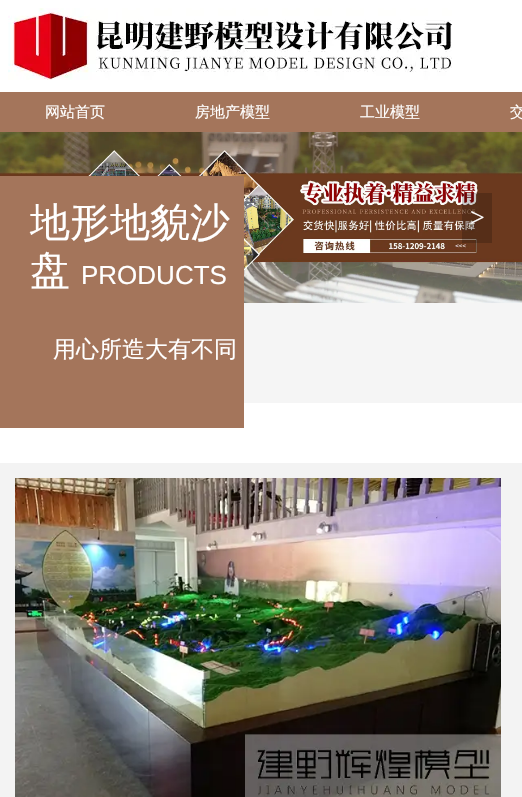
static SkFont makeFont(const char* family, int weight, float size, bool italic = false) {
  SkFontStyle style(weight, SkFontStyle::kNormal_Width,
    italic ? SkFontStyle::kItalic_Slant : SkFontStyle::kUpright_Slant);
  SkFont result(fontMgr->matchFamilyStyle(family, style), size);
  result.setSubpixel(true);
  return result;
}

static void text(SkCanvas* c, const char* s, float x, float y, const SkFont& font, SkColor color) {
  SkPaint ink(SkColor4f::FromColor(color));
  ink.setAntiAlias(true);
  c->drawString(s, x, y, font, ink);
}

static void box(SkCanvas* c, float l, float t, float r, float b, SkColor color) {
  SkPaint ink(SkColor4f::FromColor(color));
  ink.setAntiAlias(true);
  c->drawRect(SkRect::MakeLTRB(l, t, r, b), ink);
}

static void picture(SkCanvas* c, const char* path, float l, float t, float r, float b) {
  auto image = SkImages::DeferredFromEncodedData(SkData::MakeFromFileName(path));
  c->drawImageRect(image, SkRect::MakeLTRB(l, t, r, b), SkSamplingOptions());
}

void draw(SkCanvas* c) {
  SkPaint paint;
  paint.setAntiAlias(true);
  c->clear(0xffffffff);
  picture(c, "img_01.png", 8, 8, 452, 80);
  box(c, 0, 92, 522, 132, 0xffa4755b);
  SkFont face1 = makeFont("WenQuanYi Zen Hei", 500, 15);
  text(c, "网站首页", 45, 117, face1, 0xffffffff);
  text(c, "房地产模型", 195, 117, face1, 0xffffffff);
  text(c, "工业模型", 360, 117, face1, 0xffffffff);
  text(c, "交", 510, 117, face1, 0xffffffff);
  box(c, 244, 303, 522, 403, 0xfff5f5f5);
  picture(c, "img_03.png", 0, 132, 522, 303);
  box(c, 0, 176, 244, 428, 0xffa4755b);
  SkFont face2 = makeFont("WenQuanYi Zen Hei", 500, 40);
  text(c, "地形地貌沙", 30, 236, face2, 0xffffffff);
  text(c, "盘", 30, 284, face2, 0xffffffff);
  SkFont face3 = makeFont("Liberation Sans", 400, 26);
  text(c, "PRODUCTS", 81, 284, face3, 0xffffffff);
  SkFont face4 = makeFont("WenQuanYi Zen Hei", 500, 23);
  text(c, "用心所造大有不同", 53, 357, face4, 0xffffffff);
  box(c, 0, 463, 522, 797, 0xfff3f3f3);
  picture(c, "img_02.png", 15, 478, 501, 797);
  box(c, 462, 193, 492, 243, 0x33000000);
  SkFont face5 = makeFont("Liberation Serif", 400, 26);
  text(c, ">", 470, 226, face5, 0xffffffff);
}
